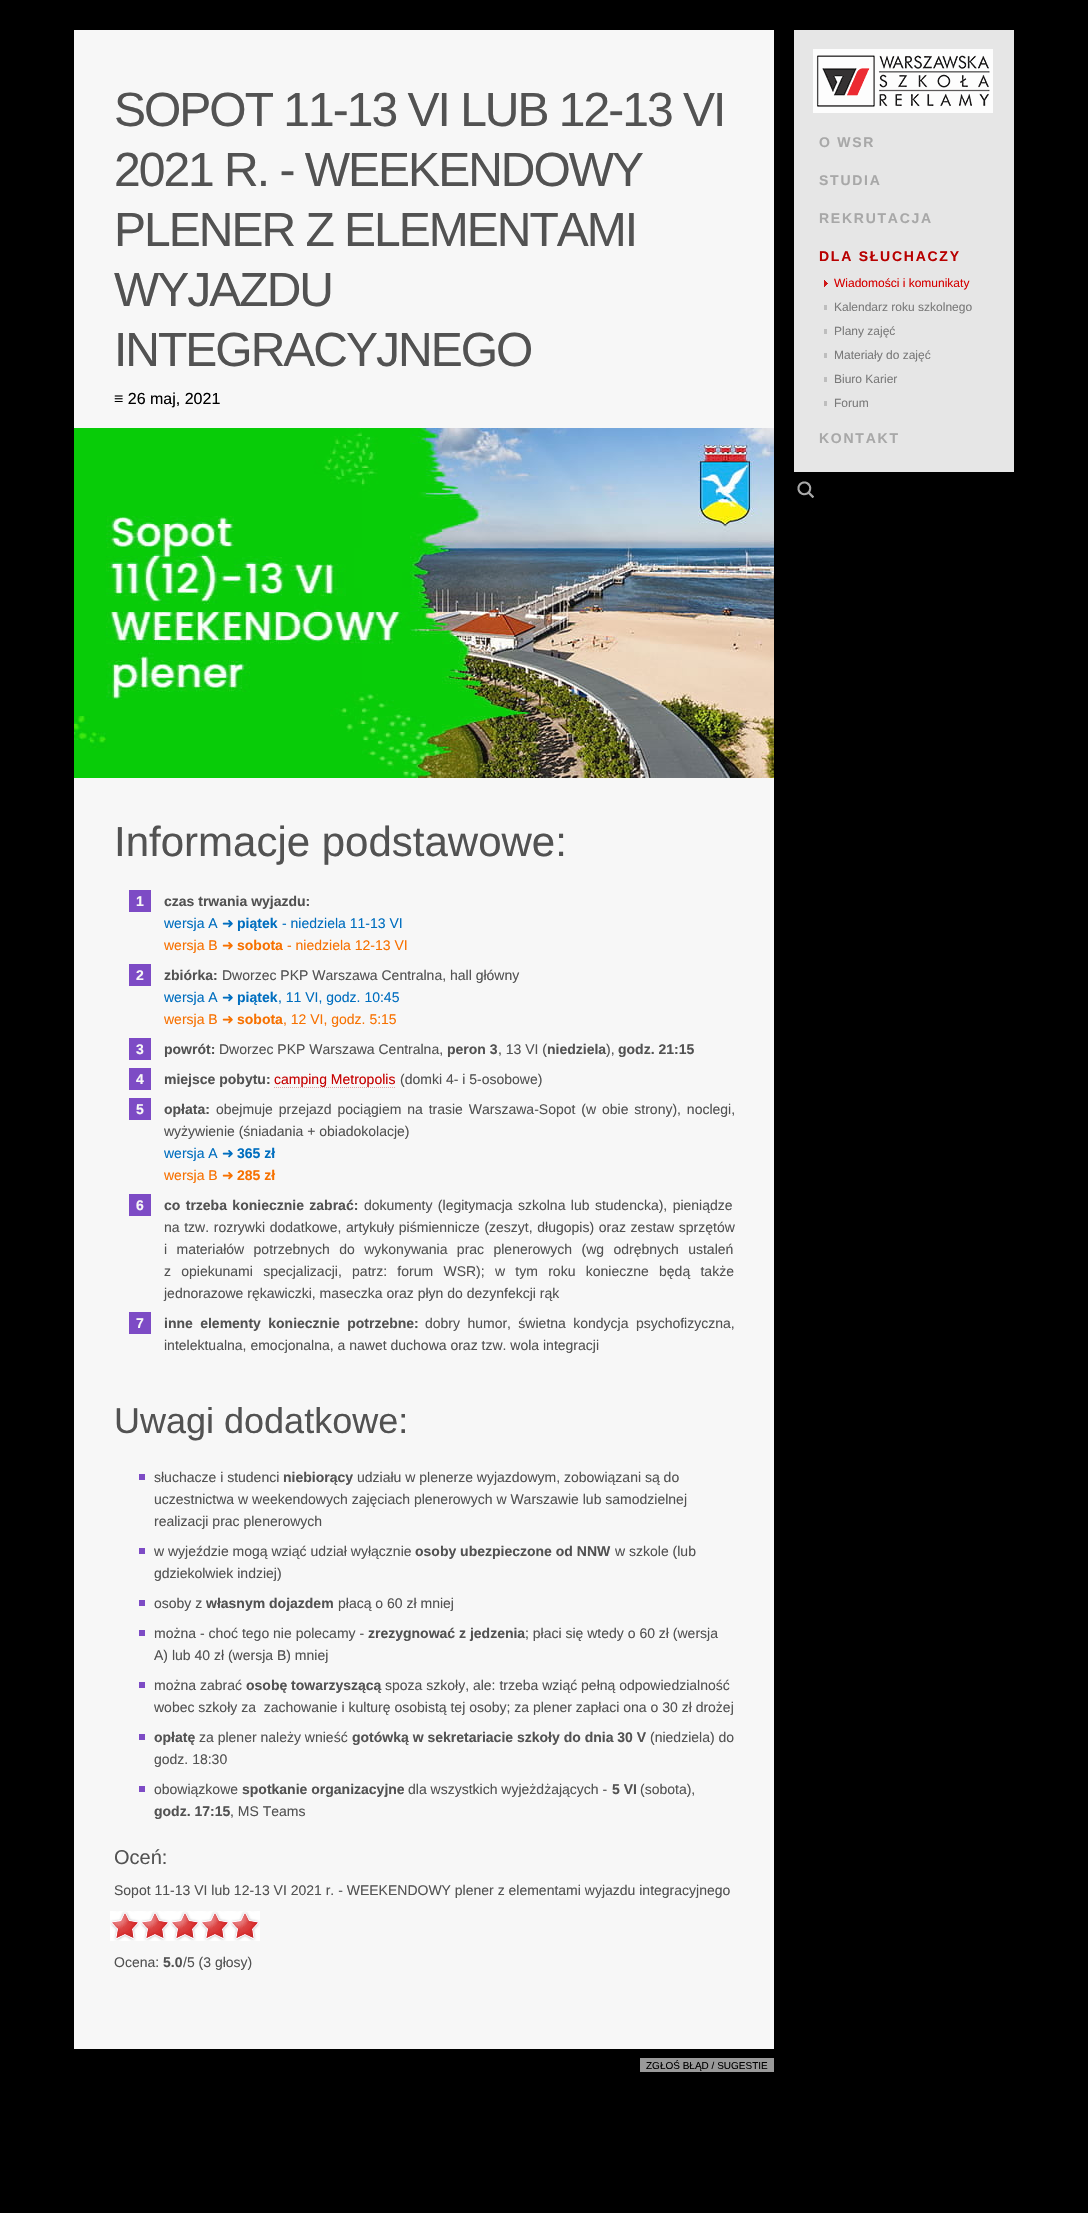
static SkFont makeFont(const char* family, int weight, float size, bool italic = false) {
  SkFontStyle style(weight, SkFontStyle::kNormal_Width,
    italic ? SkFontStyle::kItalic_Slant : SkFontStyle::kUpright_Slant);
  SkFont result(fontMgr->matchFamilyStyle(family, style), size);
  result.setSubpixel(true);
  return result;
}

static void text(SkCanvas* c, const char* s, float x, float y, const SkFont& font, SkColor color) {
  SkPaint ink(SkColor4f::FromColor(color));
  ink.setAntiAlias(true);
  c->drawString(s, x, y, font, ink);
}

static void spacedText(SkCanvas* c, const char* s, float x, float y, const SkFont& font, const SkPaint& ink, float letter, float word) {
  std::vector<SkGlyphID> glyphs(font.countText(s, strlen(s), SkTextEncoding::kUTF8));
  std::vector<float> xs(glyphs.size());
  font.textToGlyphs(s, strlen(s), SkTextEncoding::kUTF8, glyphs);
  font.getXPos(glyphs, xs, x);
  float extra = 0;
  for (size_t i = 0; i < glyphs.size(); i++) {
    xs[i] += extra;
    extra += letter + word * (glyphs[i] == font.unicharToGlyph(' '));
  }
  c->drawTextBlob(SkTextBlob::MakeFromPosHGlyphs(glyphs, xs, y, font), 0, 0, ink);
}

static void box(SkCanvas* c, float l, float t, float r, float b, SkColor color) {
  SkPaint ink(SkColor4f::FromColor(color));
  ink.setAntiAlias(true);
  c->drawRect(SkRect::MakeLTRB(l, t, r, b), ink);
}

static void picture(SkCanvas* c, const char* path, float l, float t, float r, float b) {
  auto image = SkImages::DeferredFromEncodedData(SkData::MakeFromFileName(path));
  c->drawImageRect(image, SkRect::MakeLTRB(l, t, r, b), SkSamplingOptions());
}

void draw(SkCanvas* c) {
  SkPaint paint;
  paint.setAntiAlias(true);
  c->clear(0xff000000);
  box(c, 74, 30, 774, 2049, 0xfff7f7f7);
  SkFont face1 = makeFont("Liberation Sans", 400, 48);
  paint.setColor(0xff525252);
  spacedText(c, "SOPOT 11-13 VI LUB 12-13 VI", 114, 126, face1, paint, -2, 0);
  spacedText(c, "2021 R. - WEEKENDOWY", 114, 186, face1, paint, -2, 0);
  spacedText(c, "PLENER Z ELEMENTAMI", 114, 246, face1, paint, -2, 0);
  spacedText(c, "WYJAZDU", 114, 306, face1, paint, -2, 0);
  spacedText(c, "INTEGRACYJNEGO", 114, 366, face1, paint, -2, 0);
  SkFont face2 = makeFont("Liberation Sans", 400, 16);
  text(c, "≡ 26 maj, 2021", 114, 404, face2, 0xff000000);
  picture(c, "img_01.png", 74, 428, 774, 778);
  SkFont face3 = makeFont("Liberation Sans", 400, 42);
  text(c, "Informacje podstawowe:", 114, 856, face3, 0xff525252);
  box(c, 129, 890, 151, 912, 0xff7d4bc5);
  SkFont face4 = makeFont("Liberation Sans", 700, 14);
  text(c, "1", 136, 906, face4, 0xfff7f7f7);
  text(c, "czas trwania wyjazdu:", 164, 906, face4, 0xff525252);
  SkFont face5 = makeFont("Liberation Sans", 400, 14);
  text(c, "wersja A", 164, 928, face5, 0xff006ebf);
  SkFont face6 = makeFont("DejaVu Sans", 400, 14);
  text(c, "➜", 222, 928, face6, 0xff006ebf);
  text(c, "piątek", 237, 928, face4, 0xff006ebf);
  text(c, "- niedziela 11-13 VI", 282, 928, face5, 0xff006ebf);
  text(c, "wersja B", 164, 950, face5, 0xfff77100);
  text(c, "➜", 222, 950, face6, 0xfff77100);
  text(c, "sobota", 237, 950, face4, 0xfff77100);
  text(c, "- niedziela 12-13 VI", 287, 950, face5, 0xfff77100);
  box(c, 129, 964, 151, 986, 0xff7d4bc5);
  text(c, "2", 136, 980, face4, 0xfff7f7f7);
  text(c, "zbiórka:", 164, 980, face4, 0xff525252);
  text(c, "Dworzec PKP Warszawa Centralna, hall główny", 222, 980, face5, 0xff525252);
  text(c, "wersja A", 164, 1002, face5, 0xff006ebf);
  text(c, "➜", 222, 1002, face6, 0xff006ebf);
  text(c, "piątek", 237, 1002, face4, 0xff006ebf);
  text(c, ", 11 VI, godz. 10:45", 278, 1002, face5, 0xff006ebf);
  text(c, "wersja B", 164, 1024, face5, 0xfff77100);
  text(c, "➜", 222, 1024, face6, 0xfff77100);
  text(c, "sobota", 237, 1024, face4, 0xfff77100);
  text(c, ", 12 VI, godz. 5:15", 283, 1024, face5, 0xfff77100);
  box(c, 129, 1038, 151, 1060, 0xff7d4bc5);
  text(c, "3", 136, 1054, face4, 0xfff7f7f7);
  text(c, "powrót:", 164, 1054, face4, 0xff525252);
  text(c, "Dworzec PKP Warszawa Centralna,", 219, 1054, face5, 0xff525252);
  text(c, "peron 3", 447, 1054, face4, 0xff525252);
  text(c, ", 13 VI (", 498, 1054, face5, 0xff525252);
  text(c, "niedziela", 547, 1054, face4, 0xff525252);
  text(c, "),", 606, 1054, face5, 0xff525252);
  text(c, "godz. 21:15", 618, 1054, face4, 0xff525252);
  box(c, 129, 1068, 151, 1090, 0xff7d4bc5);
  text(c, "4", 136, 1084, face4, 0xfff7f7f7);
  text(c, "miejsce pobytu:", 164, 1084, face4, 0xff525252);
  text(c, "camping Metropolis", 274, 1084, face5, 0xffc60000);
  paint.setStyle(SkPaint::kStroke_Style);
  paint.setStrokeWidth(1);
  paint.setColor(0xffdba6a6);
  paint.setPathEffect(SkDashPathEffect::Make({{1, 1}}, 0));
  c->drawPath(SkPathBuilder().moveTo(274, 1087.5f).lineTo(396, 1087.5f).detach(), paint);
  paint.setPathEffect(nullptr);
  text(c, "(domki 4- i 5-osobowe)", 400, 1084, face5, 0xff525252);
  box(c, 129, 1098, 151, 1120, 0xff7d4bc5);
  text(c, "5", 136, 1114, face4, 0xfff7f7f7);
  text(c, "opłata:", 164, 1114, face4, 0xff525252);
  paint.setStyle(SkPaint::kFill_Style);
  paint.setColor(0xff525252);
  spacedText(c, "obejmuje przejazd pociągiem na trasie Warszawa-Sopot (w obie strony), noclegi,", 216, 1114, face5, paint, 0, 2);
  text(c, "wyżywienie (śniadania + obiadokolacje)", 164, 1136, face5, 0xff525252);
  text(c, "wersja A", 164, 1158, face5, 0xff006ebf);
  text(c, "➜", 222, 1158, face6, 0xff006ebf);
  text(c, "365 zł", 237, 1158, face4, 0xff006ebf);
  text(c, "wersja B", 164, 1180, face5, 0xfff77100);
  text(c, "➜", 222, 1180, face6, 0xfff77100);
  text(c, "285 zł", 237, 1180, face4, 0xfff77100);
  box(c, 129, 1194, 151, 1216, 0xff7d4bc5);
  text(c, "6", 136, 1210, face4, 0xfff7f7f7);
  spacedText(c, "co trzeba koniecznie zabrać:", 164, 1210, face4, paint, 0, 1.5f);
  spacedText(c, "dokumenty (legitymacja szkolna lub studencka), pieniądze", 364, 1210, face5, paint, 0, 1.5f);
  spacedText(c, "na tzw. rozrywki dodatkowe, artykuły piśmiennicze (zeszyt, długopis) oraz zestaw sprzętów", 164, 1232, face5, paint, 0, 0.75f);
  spacedText(c, "i materiałów potrzebnych do wykonywania prac plenerowych (wg odrębnych ustaleń", 164, 1254, face5, paint, 0, 5.5f);
  spacedText(c, "z opiekunami specjalizacji, patrz: forum WSR); w tym roku konieczne będą także", 164, 1276, face5, paint, 0, 6.4f);
  text(c, "jednorazowe rękawiczki, maseczka oraz płyn do dezynfekcji rąk", 164, 1298, face5, 0xff525252);
  box(c, 129, 1312, 151, 1334, 0xff7d4bc5);
  text(c, "7", 136, 1328, face4, 0xfff7f7f7);
  spacedText(c, "inne elementy koniecznie potrzebne:", 164, 1328, face4, paint, 0, 3.5f);
  spacedText(c, "dobry humor, świetna kondycja psychofizyczna,", 425, 1328, face5, paint, 0, 3.5f);
  text(c, "intelektualna, emocjonalna, a nawet duchowa oraz tzw. wola integracji", 164, 1350, face5, 0xff525252);
  SkFont face7 = makeFont("Liberation Sans", 400, 36);
  text(c, "Uwagi dodatkowe:", 114, 1433, face7, 0xff525252);
  box(c, 139, 1474, 145, 1480, 0xff7d4bc5);
  text(c, "słuchacze i studenci", 154, 1482, face5, 0xff525252);
  text(c, "niebiorący", 283, 1482, face4, 0xff525252);
  text(c, "udziału w plenerze wyjazdowym, zobowiązani są do", 357, 1482, face5, 0xff525252);
  text(c, "uczestnictwa w weekendowych zajęciach plenerowych w Warszawie lub samodzielnej", 154, 1504, face5, 0xff525252);
  text(c, "realizacji prac plenerowych", 154, 1526, face5, 0xff525252);
  box(c, 139, 1548, 145, 1554, 0xff7d4bc5);
  text(c, "w wyjeździe mogą wziąć udział wyłącznie", 154, 1556, face5, 0xff525252);
  text(c, "osoby ubezpieczone od NNW", 415, 1556, face4, 0xff525252);
  text(c, "w szkole (lub", 615, 1556, face5, 0xff525252);
  text(c, "gdziekolwiek indziej)", 154, 1578, face5, 0xff525252);
  box(c, 139, 1600, 145, 1606, 0xff7d4bc5);
  text(c, "osoby z", 154, 1608, face5, 0xff525252);
  text(c, "własnym dojazdem", 206, 1608, face4, 0xff525252);
  text(c, "płacą o 60 zł mniej", 338, 1608, face5, 0xff525252);
  box(c, 139, 1630, 145, 1636, 0xff7d4bc5);
  text(c, "można - choć tego nie polecamy -", 154, 1638, face5, 0xff525252);
  text(c, "zrezygnować z jedzenia", 368, 1638, face4, 0xff525252);
  text(c, "; płaci się wtedy o 60 zł (wersja", 525, 1638, face5, 0xff525252);
  text(c, "A) lub 40 zł (wersja B) mniej", 154, 1660, face5, 0xff525252);
  box(c, 139, 1682, 145, 1688, 0xff7d4bc5);
  text(c, "można zabrać", 154, 1690, face5, 0xff525252);
  text(c, "osobę towarzyszącą", 246, 1690, face4, 0xff525252);
  text(c, "spoza szkoły, ale: trzeba wziąć pełną odpowiedzialność", 385, 1690, face5, 0xff525252);
  text(c, "wobec szkoły za  zachowanie i kulturę osobistą tej osoby; za plener zapłaci ona o 30 zł drożej", 154, 1712, face5, 0xff525252);
  box(c, 139, 1734, 145, 1740, 0xff7d4bc5);
  text(c, "opłatę", 154, 1742, face4, 0xff525252);
  text(c, "za plener należy wnieść", 199, 1742, face5, 0xff525252);
  text(c, "gotówką w sekretariacie szkoły do dnia 30 V", 352, 1742, face4, 0xff525252);
  text(c, "(niedziela) do", 650, 1742, face5, 0xff525252);
  text(c, "godz. 18:30", 154, 1764, face5, 0xff525252);
  box(c, 139, 1786, 145, 1792, 0xff7d4bc5);
  text(c, "obowiązkowe", 154, 1794, face5, 0xff525252);
  text(c, "spotkanie organizacyjne", 242, 1794, face4, 0xff525252);
  text(c, "dla wszystkich wyjeżdżających -", 408, 1794, face5, 0xff525252);
  text(c, "5 VI", 612, 1794, face4, 0xff525252);
  text(c, "(sobota),", 640, 1794, face5, 0xff525252);
  text(c, "godz. 17:15", 154, 1816, face4, 0xff525252);
  text(c, ", MS Teams", 230, 1816, face5, 0xff525252);
  SkFont face8 = makeFont("Liberation Sans", 400, 20);
  text(c, "Oceń:", 114, 1864, face8, 0xff525252);
  text(c, "Sopot 11-13 VI lub 12-13 VI 2021 r. - WEEKENDOWY plener z elementami wyjazdu integracyjnego", 114, 1895, face5, 0xff525252);
  picture(c, "img_02.png", 110, 1911, 260, 1941);
  picture(c, "img_03.png", 110, 1911, 260, 1941);
  text(c, "Ocena:", 114, 1967, face5, 0xff525252);
  text(c, "5.0", 163, 1967, face4, 0xff525252);
  text(c, "/5 (3 głosy)", 183, 1967, face5, 0xff525252);
  box(c, 794, 30, 1014, 472, 0xffe6e6e6);
  picture(c, "img_04.png", 813, 49, 993, 113);
  paint.setColor(0xffa8a8a8);
  spacedText(c, "O WSR", 819, 147, face4, paint, 1.75f, 0);
  spacedText(c, "STUDIA", 819, 185, face4, paint, 1.75f, 0);
  spacedText(c, "REKRUTACJA", 819, 223, face4, paint, 1.75f, 0);
  paint.setColor(0xffb80000);
  spacedText(c, "DLA SŁUCHACZY", 819, 261, face4, paint, 1.75f, 0);
  picture(c, "img_05.png", 824, 280, 828, 287);
  SkFont face9 = makeFont("Liberation Sans", 400, 12);
  text(c, "Wiadomości i komunikaty", 834, 287, face9, 0xffd60000);
  box(c, 824, 305, 827, 310, 0xffbebebe);
  text(c, "Kalendarz roku szkolnego", 834, 311, face9, 0xff7a7a7a);
  box(c, 824, 329, 827, 334, 0xffbebebe);
  text(c, "Plany zajęć", 834, 335, face9, 0xff7a7a7a);
  box(c, 824, 353, 827, 358, 0xffbebebe);
  text(c, "Materiały do zajęć", 834, 359, face9, 0xff7a7a7a);
  box(c, 824, 377, 827, 382, 0xffbebebe);
  text(c, "Biuro Karier", 834, 383, face9, 0xff7a7a7a);
  box(c, 824, 401, 827, 406, 0xffbebebe);
  text(c, "Forum", 834, 407, face9, 0xff7a7a7a);
  paint.setColor(0xffa8a8a8);
  spacedText(c, "KONTAKT", 819, 443, face4, paint, 1.75f, 0);
  picture(c, "img_06.png", 797, 481, 814, 498);
  box(c, 640, 2058, 774, 2072, 0xff999999);
  SkFont face10 = makeFont("Liberation Sans", 400, 10);
  text(c, "ZGŁOŚ BŁĄD / SUGESTIE", 646, 2069, face10, 0xff000000);
}
